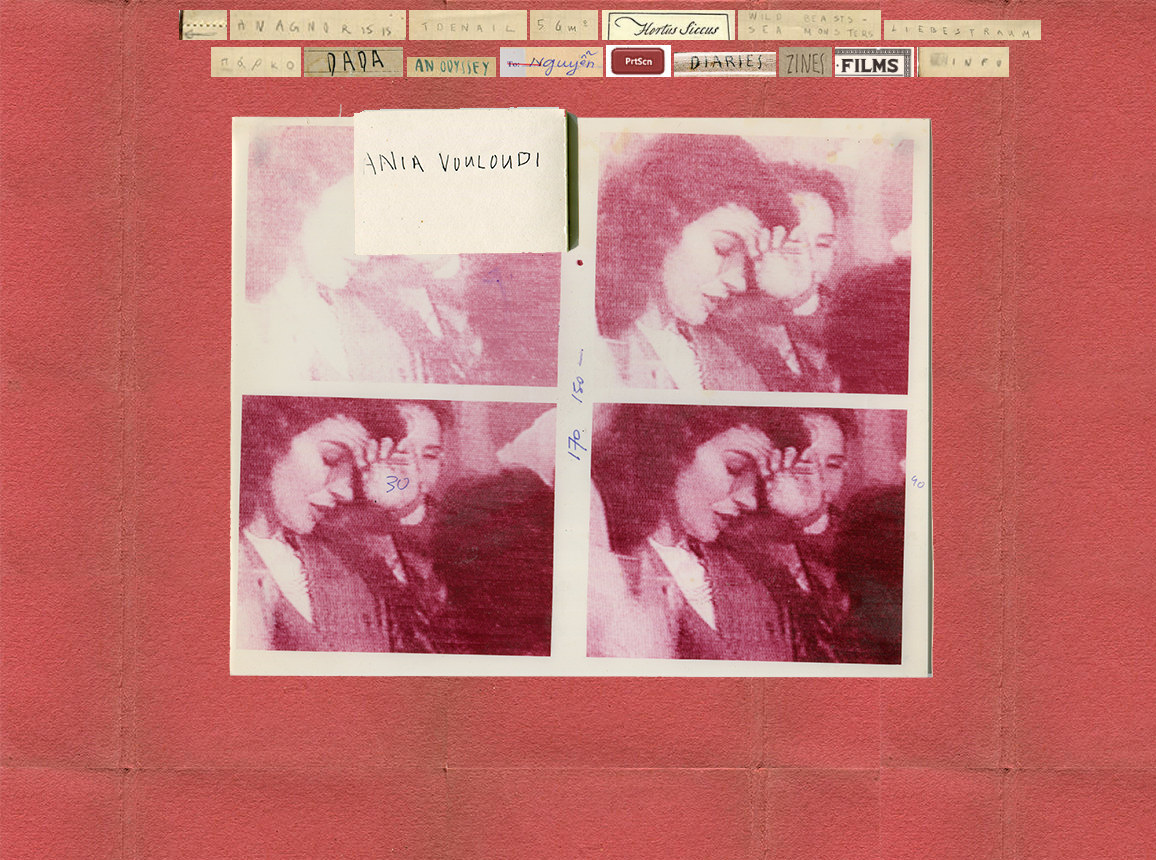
static void picture(SkCanvas* c, const char* path, float l, float t, float r, float b) {
  auto image = SkImages::DeferredFromEncodedData(SkData::MakeFromFileName(path));
  c->drawImageRect(image, SkRect::MakeLTRB(l, t, r, b), SkSamplingOptions());
}

void draw(SkCanvas* c) {
  SkPaint paint;
  paint.setAntiAlias(true);
  c->clear(0xffffffff);
  picture(c, "img_01.png", 0, 0, 1156, 860);
  picture(c, "img_02.png", 179, 10, 227, 40);
  picture(c, "img_03.png", 230, 10, 406, 40);
  picture(c, "img_04.png", 409, 10, 527, 40);
  picture(c, "img_05.png", 530, 10, 598, 40);
  picture(c, "img_06.png", 602, 10, 735, 40);
  picture(c, "img_07.png", 738, 10, 881, 40);
  picture(c, "img_08.png", 884, 20, 1041, 40);
  picture(c, "img_09.png", 211, 47, 301, 77);
  picture(c, "img_10.png", 304, 47, 403, 77);
  picture(c, "img_11.png", 407, 57, 496, 77);
  picture(c, "img_12.png", 500, 47, 603, 77);
  picture(c, "img_13.png", 606, 45, 671, 77);
  picture(c, "img_14.png", 674, 52, 776, 77);
  picture(c, "img_15.png", 779, 47, 832, 77);
  picture(c, "img_16.png", 835, 47, 914, 77);
  picture(c, "img_17.png", 917, 47, 1009, 77);
  picture(c, "img_18.png", 209, 104, 939, 692);
}
